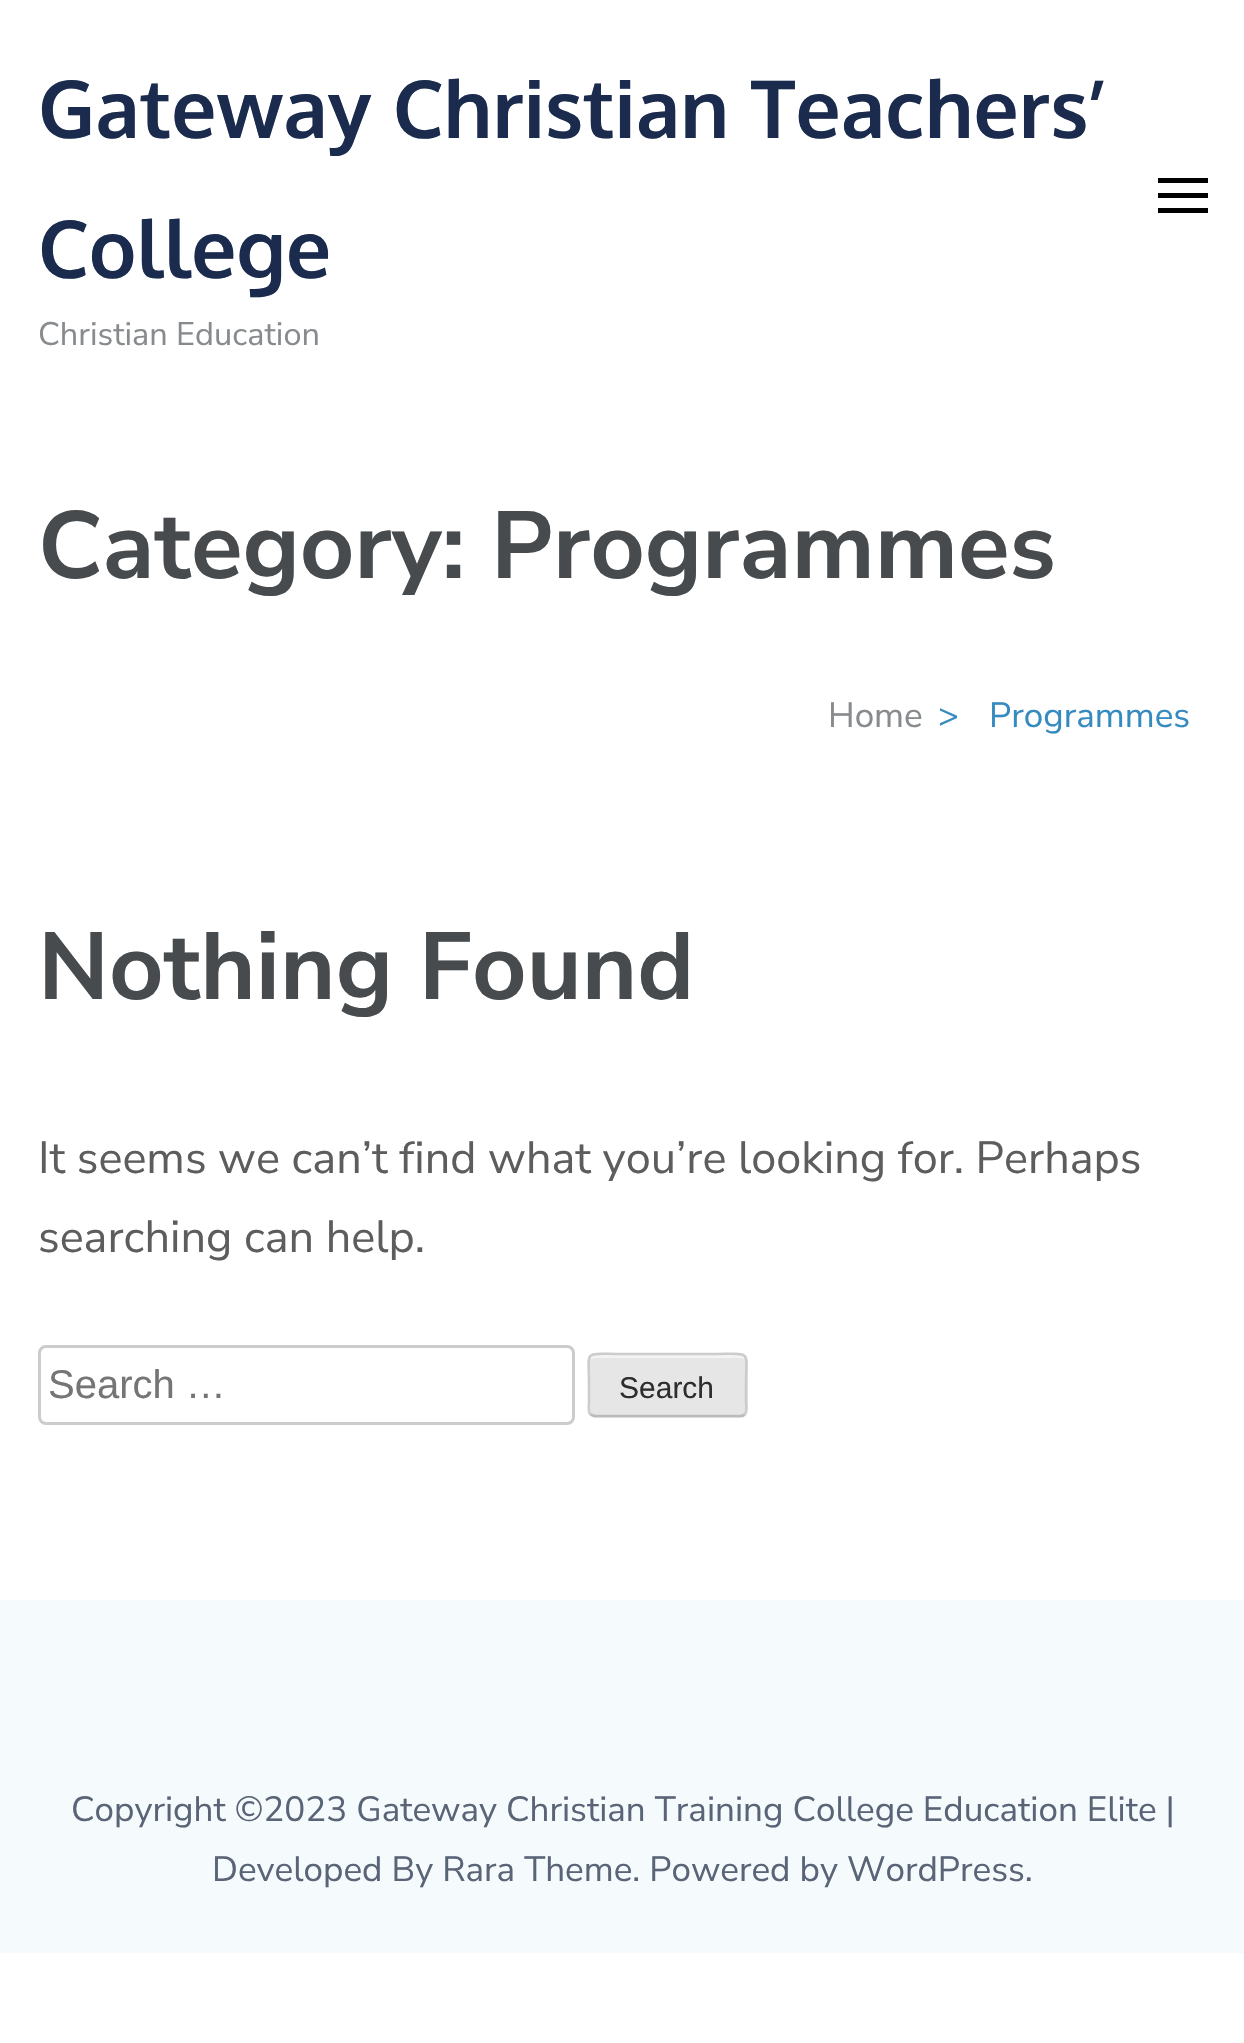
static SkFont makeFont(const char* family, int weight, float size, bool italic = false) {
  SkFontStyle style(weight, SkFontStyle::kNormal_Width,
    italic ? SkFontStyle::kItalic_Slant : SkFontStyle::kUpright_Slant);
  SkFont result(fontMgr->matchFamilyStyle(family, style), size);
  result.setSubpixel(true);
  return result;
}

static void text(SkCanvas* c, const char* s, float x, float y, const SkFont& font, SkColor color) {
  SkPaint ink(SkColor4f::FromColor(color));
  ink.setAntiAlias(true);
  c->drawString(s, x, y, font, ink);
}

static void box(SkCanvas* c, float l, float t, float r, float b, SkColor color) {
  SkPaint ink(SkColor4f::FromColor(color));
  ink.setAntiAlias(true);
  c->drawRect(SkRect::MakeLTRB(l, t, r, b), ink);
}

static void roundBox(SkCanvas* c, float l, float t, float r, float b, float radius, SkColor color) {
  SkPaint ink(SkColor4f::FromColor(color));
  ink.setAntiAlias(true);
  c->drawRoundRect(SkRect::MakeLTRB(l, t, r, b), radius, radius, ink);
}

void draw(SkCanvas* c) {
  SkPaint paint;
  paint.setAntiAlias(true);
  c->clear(0xffffffff);
  SkFont face1 = makeFont("Oxygen", 700, 80);
  text(c, "Gateway Christian Teachers’", 38, 138, face1, 0xff1a2b4e);
  text(c, "College", 38, 278, face1, 0xff1a2b4e);
  SkFont face2 = makeFont("Nunito Sans", 400, 32.5f);
  text(c, "Christian Education", 38, 345, face2, 0xff878b8d);
  box(c, 1158, 178, 1208, 183, 0xff000000);
  box(c, 1158, 193, 1208, 198, 0xff000000);
  box(c, 1158, 208, 1208, 213, 0xff000000);
  SkFont face3 = makeFont("Nunito Sans", 700, 95);
  text(c, "Category: Programmes", 38, 578, face3, 0xff474b4e);
  SkFont face4 = makeFont("Nunito Sans", 400, 35);
  text(c, "Home", 828, 727, face4, 0xff878b8d);
  text(c, ">", 938, 727, face4, 0xff358ac0);
  text(c, "Programmes", 989, 727, face4, 0xff358ac0);
  text(c, "Nothing Found", 38, 999, face3, 0xff474b4e);
  SkFont face5 = makeFont("Nunito Sans", 400, 45);
  text(c, "It seems we can’t find what you’re looking for. Perhaps", 38, 1173, face5, 0xff5d5d5d);
  text(c, "searching can help.", 38, 1252, face5, 0xff5d5d5d);
  paint.setStyle(SkPaint::kStroke_Style);
  paint.setStrokeWidth(3);
  paint.setColor(0xffcccccc);
  c->drawRoundRect(SkRect::MakeLTRB(39.5f, 1346.5f, 573.5f, 1423.5f), 6.5f, 6.5f, paint);
  SkFont face6 = makeFont("Liberation Sans", 400, 40);
  text(c, "Search …", 48, 1398, face6, 0xff757575);
  roundBox(c, 588, 1353, 748, 1418, 8, 0xffe6e6e6);
  paint.setStyle(SkPaint::kFill_Style);
  paint.setColor(0xfff3f3f3);
  c->drawPath(SkPathBuilder().moveTo(595, 1358).lineTo(740, 1358).cubicTo(743, 1358, 745, 1360, 745, 1362).lineTo(745, 1360).cubicTo(745, 1357, 743, 1355, 740, 1355).lineTo(595, 1355).cubicTo(592, 1355, 590, 1357, 590, 1360).lineTo(590, 1362).cubicTo(590, 1360, 592, 1358, 595, 1358).close().detach(), paint);
  paint.setStyle(SkPaint::kStroke_Style);
  paint.setStrokeWidth(2.5f);
  paint.setColor(0xffbbbbbb);
  c->drawPath(SkPathBuilder().moveTo(744.5f, 1414.5f).cubicTo(743.5f, 1415.5f, 742, 1416, 740.5f, 1416).lineTo(594.5f, 1416).lineTo(590.5f, 1414.5f).detach(), paint);
  paint.setColor(0xffcccccc);
  c->drawPath(SkPathBuilder().moveTo(590.5f, 1414.5f).cubicTo(587.5f, 1411.5f, 589, 1405, 589, 1401.5f).lineTo(589, 1385).cubicTo(589, 1349, 582.5f, 1354, 619, 1354).lineTo(716, 1354).cubicTo(752.5f, 1354, 746, 1349, 746, 1385).lineTo(746, 1401.5f).cubicTo(746, 1405, 747.5f, 1411.5f, 744.5f, 1414.5f).detach(), paint);
  SkFont face7 = makeFont("Liberation Sans", 400, 30);
  text(c, "Search", 619, 1398, face7, 0xff2e2e2e);
  box(c, 0, 1600, 1244, 1953, 0xfff5fafd);
  text(c, "Copyright ©2023 Gateway Christian Training College Education Elite |", 71, 1821, face4, 0xff5a6477);
  text(c, "Developed By Rara Theme. Powered by WordPress.", 212, 1881, face4, 0xff5a6477);
}
